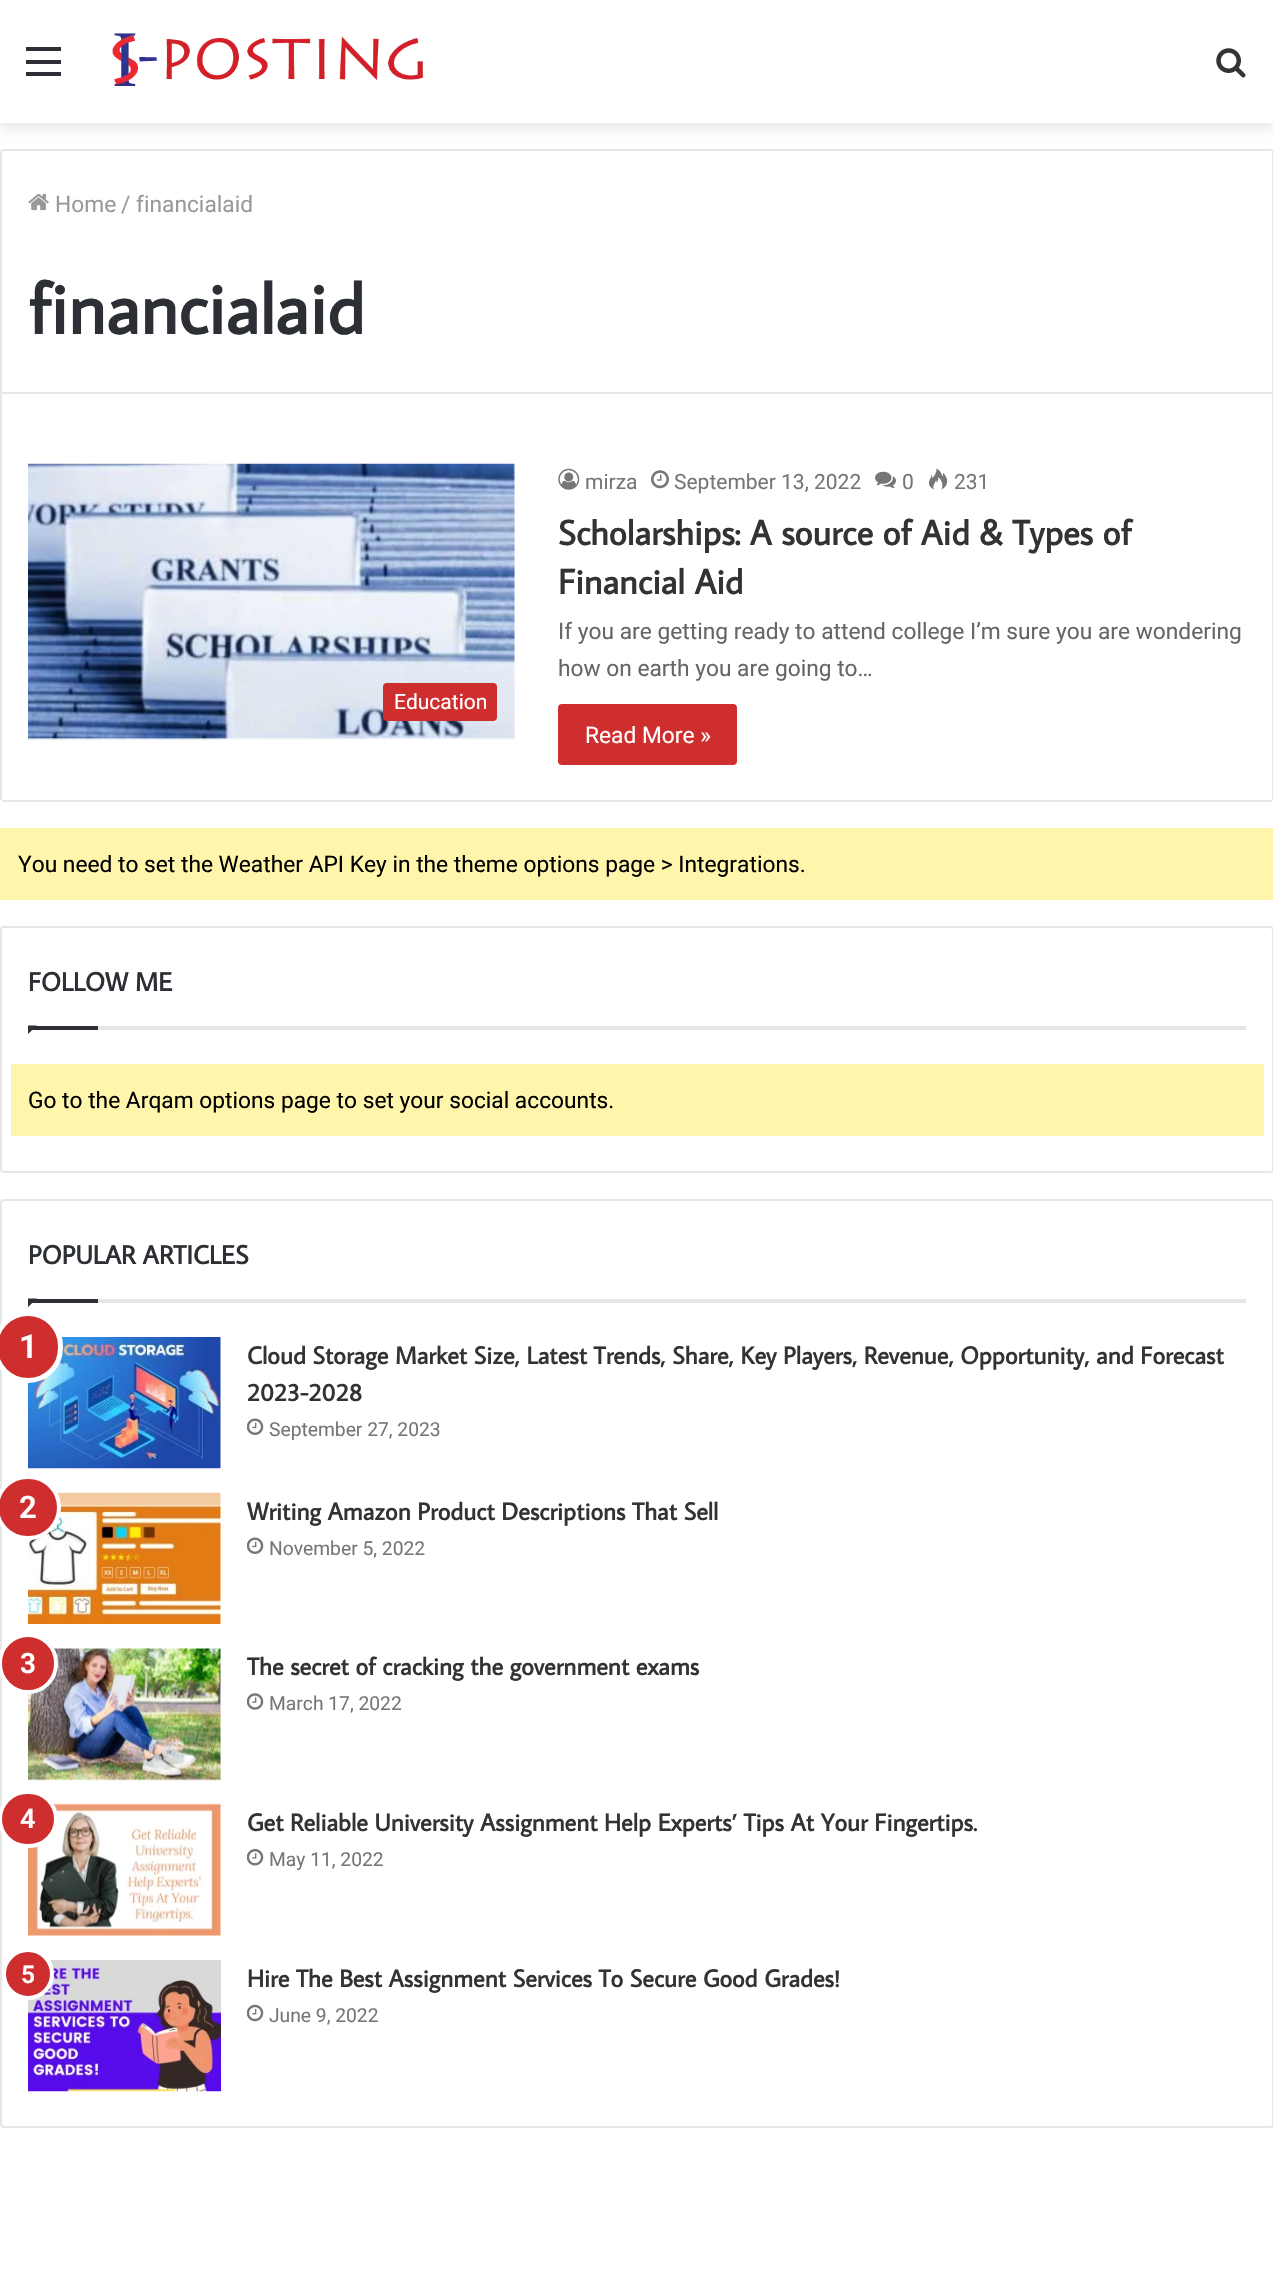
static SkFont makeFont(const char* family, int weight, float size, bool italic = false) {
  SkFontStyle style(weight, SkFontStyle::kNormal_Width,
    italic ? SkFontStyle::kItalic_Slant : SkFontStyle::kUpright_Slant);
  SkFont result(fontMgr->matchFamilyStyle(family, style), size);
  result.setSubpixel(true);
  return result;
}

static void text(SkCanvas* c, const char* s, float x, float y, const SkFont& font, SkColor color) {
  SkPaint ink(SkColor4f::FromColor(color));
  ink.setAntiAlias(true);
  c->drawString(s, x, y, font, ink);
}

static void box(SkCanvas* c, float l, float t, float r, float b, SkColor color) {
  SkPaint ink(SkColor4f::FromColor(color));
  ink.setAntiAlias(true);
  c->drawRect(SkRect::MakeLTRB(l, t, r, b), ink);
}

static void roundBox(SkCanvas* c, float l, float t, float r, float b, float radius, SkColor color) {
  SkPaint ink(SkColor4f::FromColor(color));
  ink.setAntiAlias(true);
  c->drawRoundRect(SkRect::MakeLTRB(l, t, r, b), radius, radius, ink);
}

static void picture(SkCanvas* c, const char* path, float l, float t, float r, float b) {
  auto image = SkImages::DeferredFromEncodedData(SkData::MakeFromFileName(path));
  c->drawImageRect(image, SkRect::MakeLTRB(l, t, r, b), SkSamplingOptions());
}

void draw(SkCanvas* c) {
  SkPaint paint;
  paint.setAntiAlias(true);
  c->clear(0xffffffff);
  paint.setColor(0x1a000000);
  paint.setMaskFilter(SkMaskFilter::MakeBlur(kNormal_SkBlurStyle, 6));
  c->drawRect(SkRect::MakeLTRB(0, 5, 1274, 128), paint);
  paint.setMaskFilter(nullptr);
  box(c, 0, 0, 1273, 123, 0xffffffff);
  box(c, 26, 60, 61, 64, 0xff2c2f34);
  box(c, 26, 47, 61, 51, 0xff2c2f34);
  box(c, 26, 72, 61, 76, 0xff2c2f34);
  picture(c, "img_01.png", 112, 33, 424, 86);
  picture(c, "img_02.png", 1216, 48, 1246, 78);
  paint.setStyle(SkPaint::kStroke_Style);
  paint.setStrokeWidth(2);
  paint.setColor(0xffe6e6e6);
  c->drawPath(SkPathBuilder().moveTo(4, 150).lineTo(1270, 150).cubicTo(1271.5f, 150, 1273, 151.5f, 1273, 153).lineTo(1273, 393).lineTo(1, 393).lineTo(1, 153).cubicTo(1, 151.5f, 2.5f, 150, 4, 150).close().detach(), paint);
  picture(c, "img_03.png", 28, 193, 49, 211);
  SkFont face1 = makeFont("Roboto", 400, 22.75f);
  text(c, "Home", 55, 212, face1, 0xff999999);
  text(c, "/", 121, 212, face1, 0xff999999);
  text(c, "financialaid", 136, 212, face1, 0xff999999);
  SkFont face2 = makeFont("Average Sans", 700, 71.75f);
  text(c, "financialaid", 28, 334, face2, 0xff2c2f34);
  box(c, 1272, 394, 1273, 800, 0xffe6e6e6);
  box(c, 2, 800, 1272, 802, 0xffe6e6e6);
  box(c, 0, 394, 2, 800, 0xffe6e6e6);
  picture(c, "img_04.png", 28, 463, 515, 740);
  roundBox(c, 383, 683, 497, 721, 4, 0xffcf2e2e);
  SkFont face3 = makeFont("Roboto", 400, 21);
  text(c, "Education", 394, 709, face3, 0xffffffff);
  picture(c, "img_05.png", 558, 468, 580, 490);
  text(c, "mirza", 585, 489, face3, 0xff767676);
  picture(c, "img_06.png", 651, 470, 669, 489);
  text(c, "September 13, 2022", 674, 489, face3, 0xff767676);
  picture(c, "img_07.png", 875, 471, 896, 489);
  text(c, "0", 902, 489, face3, 0xff767676);
  picture(c, "img_08.png", 929, 468, 948, 490);
  text(c, "231", 954, 489, face3, 0xff767676);
  SkFont face4 = makeFont("Average Sans", 700, 35);
  text(c, "Scholarships: A source of Aid & Types of", 558, 545, face4, 0xff333333);
  text(c, "Financial Aid", 558, 594, face4, 0xff333333);
  text(c, "If you are getting ready to attend college I’m sure you are wondering", 558, 639, face1, 0xff666666);
  text(c, "how on earth you are going to…", 558, 676, face1, 0xff666666);
  roundBox(c, 558, 704, 737, 765, 4, 0xffcf2e2e);
  text(c, "Read More »", 585, 743, face1, 0xffffffff);
  box(c, 0, 828, 1273, 900, 0xfffff6ac);
  text(c, "You need to set the Weather API Key in the theme options page > Integrations.", 18, 872, face1, 0xff000000);
  c->drawRoundRect(SkRect::MakeLTRB(1, 927, 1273, 1172), 3, 3, paint);
  box(c, 98, 1026, 1246, 1030, 0xffe6e6e6);
  SkFont face5 = makeFont("Average Sans", 700, 26.25f);
  text(c, "FOLLOW ME", 28, 991, face5, 0xff2c2f34);
  paint.setStyle(SkPaint::kFill_Style);
  paint.setColor(0xff2c2f34);
  c->drawPath(SkPathBuilder().moveTo(28, 1025.5f).lineTo(37, 1025.5f).lineTo(28, 1034).close().detach(), paint);
  box(c, 28, 1026, 98, 1030, 0xff2c2f34);
  box(c, 11, 1064, 1264, 1136, 0xfffff6ac);
  text(c, "Go to the Arqam options page to set your social accounts.", 28, 1108, face1, 0xff000000);
  paint.setStyle(SkPaint::kStroke_Style);
  paint.setColor(0xffe6e6e6);
  c->drawRoundRect(SkRect::MakeLTRB(1, 1200, 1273, 2127), 3, 3, paint);
  box(c, 98, 1299, 1246, 1303, 0xffe6e6e6);
  text(c, "POPULAR ARTICLES", 28, 1264, face5, 0xff2c2f34);
  paint.setStyle(SkPaint::kFill_Style);
  paint.setColor(0xff2c2f34);
  c->drawPath(SkPathBuilder().moveTo(28, 1298.5f).lineTo(37, 1298.5f).lineTo(28, 1307).close().detach(), paint);
  box(c, 28, 1299, 98, 1303, 0xff2c2f34);
  picture(c, "img_09.png", 28, 1337, 221, 1469);
  paint.setColor(0xffcf2e2e);
  c->drawRoundRect(SkRect::MakeLTRB(-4.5f, 1313.5f, 60.5f, 1380.5f), 32.5f, 32.5f, paint);
  paint.setStyle(SkPaint::kStroke_Style);
  paint.setStrokeWidth(5);
  paint.setColor(0xffffffff);
  c->drawRoundRect(SkRect::MakeLTRB(-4.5f, 1313.5f, 60.5f, 1380.5f), 32.5f, 32.5f, paint);
  SkFont face6 = makeFont("Roboto", 600, 33);
  text(c, "1", 19, 1358, face6, 0xffffffff);
  SkFont face7 = makeFont("Average Sans", 700, 24.5f);
  text(c, "Cloud Storage Market Size, Latest Trends, Share, Key Players, Revenue, Opportunity, and Forecast", 247, 1364, face7, 0xff333333);
  text(c, "2023-2028", 247, 1401, face7, 0xff333333);
  picture(c, "img_10.png", 247, 1418, 264, 1435);
  SkFont face8 = makeFont("Roboto", 400, 19.25f);
  text(c, "September 27, 2023", 269, 1436, face8, 0xff767676);
  picture(c, "img_11.png", 28, 1492, 221, 1624);
  paint.setStyle(SkPaint::kFill_Style);
  paint.setColor(0xffcf2e2e);
  c->drawRoundRect(SkRect::MakeLTRB(-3, 1477, 59, 1538), 30.5f, 30.5f, paint);
  paint.setStyle(SkPaint::kStroke_Style);
  paint.setStrokeWidth(4);
  paint.setColor(0xffffffff);
  c->drawRoundRect(SkRect::MakeLTRB(-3, 1477, 59, 1538), 30.5f, 30.5f, paint);
  SkFont face9 = makeFont("Roboto", 600, 31);
  text(c, "2", 19, 1518, face9, 0xffffffff);
  text(c, "Writing Amazon Product Descriptions That Sell", 247, 1520, face7, 0xff333333);
  picture(c, "img_10.png", 247, 1537, 264, 1554);
  text(c, "November 5, 2022", 269, 1555, face8, 0xff767676);
  picture(c, "img_12.png", 28, 1648, 221, 1781);
  paint.setStyle(SkPaint::kFill_Style);
  paint.setColor(0xffcf2e2e);
  c->drawRoundRect(SkRect::MakeLTRB(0, 1635, 56, 1692), 28, 28, paint);
  paint.setStyle(SkPaint::kStroke_Style);
  paint.setColor(0xffffffff);
  c->drawRoundRect(SkRect::MakeLTRB(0, 1635, 56, 1692), 28, 28, paint);
  SkFont face10 = makeFont("Roboto", 600, 28);
  text(c, "3", 20, 1673, face10, 0xffffffff);
  text(c, "The secret of cracking the government exams", 247, 1675, face7, 0xff333333);
  picture(c, "img_13.png", 247, 1693, 264, 1710);
  text(c, "March 17, 2022", 269, 1710, face8, 0xff767676);
  picture(c, "img_14.png", 28, 1803, 221, 1936);
  paint.setStyle(SkPaint::kFill_Style);
  paint.setColor(0xffcf2e2e);
  c->drawRoundRect(SkRect::MakeLTRB(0, 1792, 56, 1846), 27, 27, paint);
  paint.setStyle(SkPaint::kStroke_Style);
  paint.setColor(0xffffffff);
  c->drawRoundRect(SkRect::MakeLTRB(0, 1792, 56, 1846), 27, 27, paint);
  SkFont face11 = makeFont("Roboto", 600, 27);
  text(c, "4", 20, 1828, face11, 0xffffffff);
  text(c, "Get Reliable University Assignment Help Experts’ Tips At Your Fingertips.", 247, 1831, face7, 0xff333333);
  picture(c, "img_15.png", 247, 1849, 264, 1866);
  text(c, "May 11, 2022", 269, 1866, face8, 0xff767676);
  picture(c, "img_16.png", 28, 1960, 221, 2092);
  paint.setStyle(SkPaint::kFill_Style);
  paint.setColor(0xffcf2e2e);
  c->drawCircle(28, 1974, 24, paint);
  paint.setStyle(SkPaint::kStroke_Style);
  paint.setColor(0xffffffff);
  c->drawCircle(28, 1974, 24, paint);
  SkFont face12 = makeFont("Roboto", 600, 24.5f);
  text(c, "5", 21, 1983, face12, 0xffffffff);
  text(c, "Hire The Best Assignment Services To Secure Good Grades!", 247, 1987, face7, 0xff333333);
  picture(c, "img_17.png", 247, 2004, 264, 2022);
  text(c, "June 9, 2022", 269, 2022, face8, 0xff767676);
}
